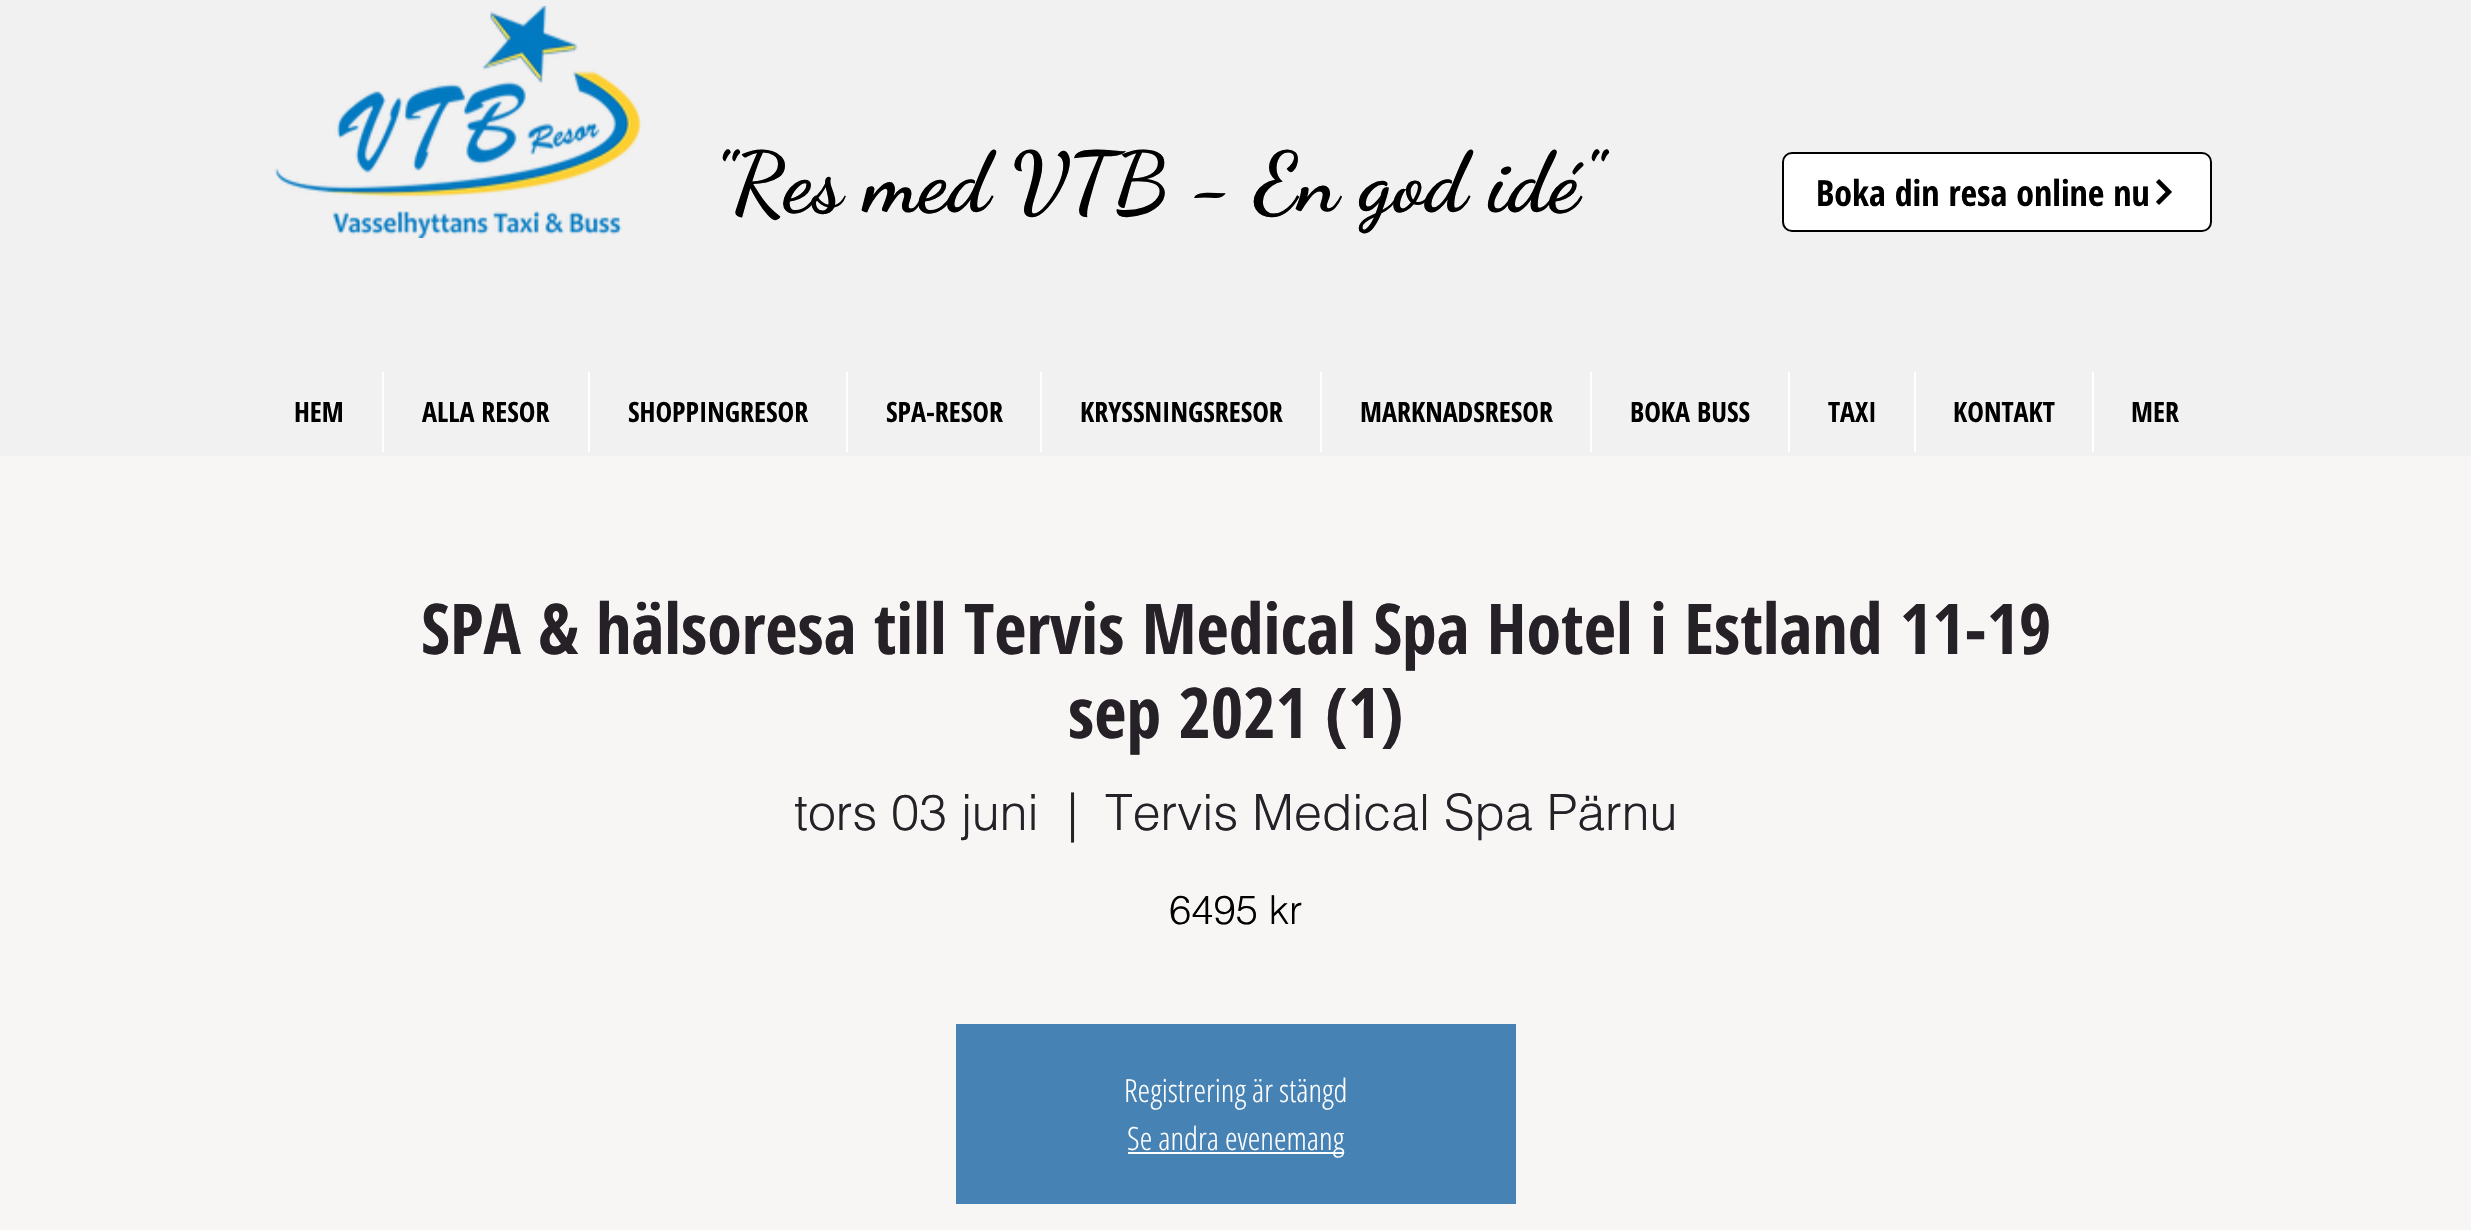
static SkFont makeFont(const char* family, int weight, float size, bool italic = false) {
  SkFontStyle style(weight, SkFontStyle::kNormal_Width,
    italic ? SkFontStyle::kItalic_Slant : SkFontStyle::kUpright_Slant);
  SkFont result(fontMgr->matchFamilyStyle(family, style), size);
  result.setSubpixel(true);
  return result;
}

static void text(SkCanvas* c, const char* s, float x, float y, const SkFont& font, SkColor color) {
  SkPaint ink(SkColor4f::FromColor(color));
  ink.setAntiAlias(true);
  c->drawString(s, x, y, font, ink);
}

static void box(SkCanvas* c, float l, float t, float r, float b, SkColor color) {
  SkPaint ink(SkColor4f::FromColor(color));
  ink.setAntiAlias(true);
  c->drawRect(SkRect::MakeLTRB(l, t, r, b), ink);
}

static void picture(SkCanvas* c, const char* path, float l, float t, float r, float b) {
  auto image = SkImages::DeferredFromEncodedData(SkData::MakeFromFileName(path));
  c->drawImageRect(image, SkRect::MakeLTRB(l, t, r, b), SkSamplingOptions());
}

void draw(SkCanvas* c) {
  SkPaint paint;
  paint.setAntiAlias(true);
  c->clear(0xfff1f1f1);
  picture(c, "img_01.png", 274, 6, 642, 238);
  SkFont face1 = makeFont("Dancing Script", 700, 84);
  text(c, "\"Res med VTB - En god idé\"", 710, 210, face1, 0xff000000);
  paint.setColor(0xffffffff);
  c->drawRoundRect(SkRect::MakeLTRB(1783, 153, 2211, 231), 9, 9, paint);
  paint.setStyle(SkPaint::kStroke_Style);
  paint.setStrokeWidth(2);
  paint.setColor(0xff000000);
  c->drawRoundRect(SkRect::MakeLTRB(1783, 153, 2211, 231), 9, 9, paint);
  SkFont face2 = makeFont("Open Sans Condensed", 700, 36);
  text(c, "Boka din resa online nu", 1816, 206, face2, 0xff000000);
  picture(c, "img_02.png", 2156, 179, 2172, 205);
  SkFont face3 = makeFont("Open Sans Condensed", 700, 28);
  text(c, "HEM", 294, 422, face3, 0xff000000);
  box(c, 382, 372, 384, 452, 0xffffffff);
  text(c, "ALLA RESOR", 422, 422, face3, 0xff000000);
  box(c, 588, 372, 590, 452, 0xffffffff);
  text(c, "SHOPPINGRESOR", 628, 422, face3, 0xff000000);
  box(c, 846, 372, 848, 452, 0xffffffff);
  text(c, "SPA-RESOR", 886, 422, face3, 0xff000000);
  box(c, 1040, 372, 1042, 452, 0xffffffff);
  text(c, "KRYSSNINGSRESOR", 1080, 422, face3, 0xff000000);
  box(c, 1320, 372, 1322, 452, 0xffffffff);
  text(c, "MARKNADSRESOR", 1360, 422, face3, 0xff000000);
  box(c, 1590, 372, 1592, 452, 0xffffffff);
  text(c, "BOKA BUSS", 1630, 422, face3, 0xff000000);
  box(c, 1788, 372, 1790, 452, 0xffffffff);
  text(c, "TAXI", 1828, 422, face3, 0xff000000);
  box(c, 1914, 372, 1916, 452, 0xffffffff);
  text(c, "KONTAKT", 1953, 422, face3, 0xff000000);
  box(c, 2092, 372, 2094, 452, 0xffffffff);
  text(c, "MER", 2131, 422, face3, 0xff000000);
  box(c, 0, 456, 2471, 1230, 0xfff7f6f5);
  SkFont face4 = makeFont("Open Sans Condensed", 700, 70);
  text(c, "SPA & hälsoresa till Tervis Medical Spa Hotel i Estland 11-19", 421, 654, face4, 0xff262027);
  text(c, "sep 2021 (1)", 1068, 738, face4, 0xff262027);
  SkFont face5 = makeFont("helvetica", 300, 50);
  text(c, "tors 03 juni", 794, 830, face5, 0xff262027);
  text(c, "|", 1067, 830, face5, 0xff262027);
  text(c, "Tervis Medical Spa Pärnu", 1105, 830, face5, 0xff262027);
  SkFont face6 = makeFont("helvetica", 300, 40);
  text(c, "6495 kr", 1169, 924, face6, 0xff000000);
  box(c, 956, 1024, 1516, 1204, 0xff4682b4);
  SkFont face7 = makeFont("Open Sans Condensed", 300, 32);
  text(c, "Registrering är stängd", 1124, 1102, face7, 0xffffffff);
  box(c, 1128, 1152, 1344, 1154, 0xffffffff);
  text(c, "Se andra evenemang", 1127, 1150, face7, 0xffffffff);
}
